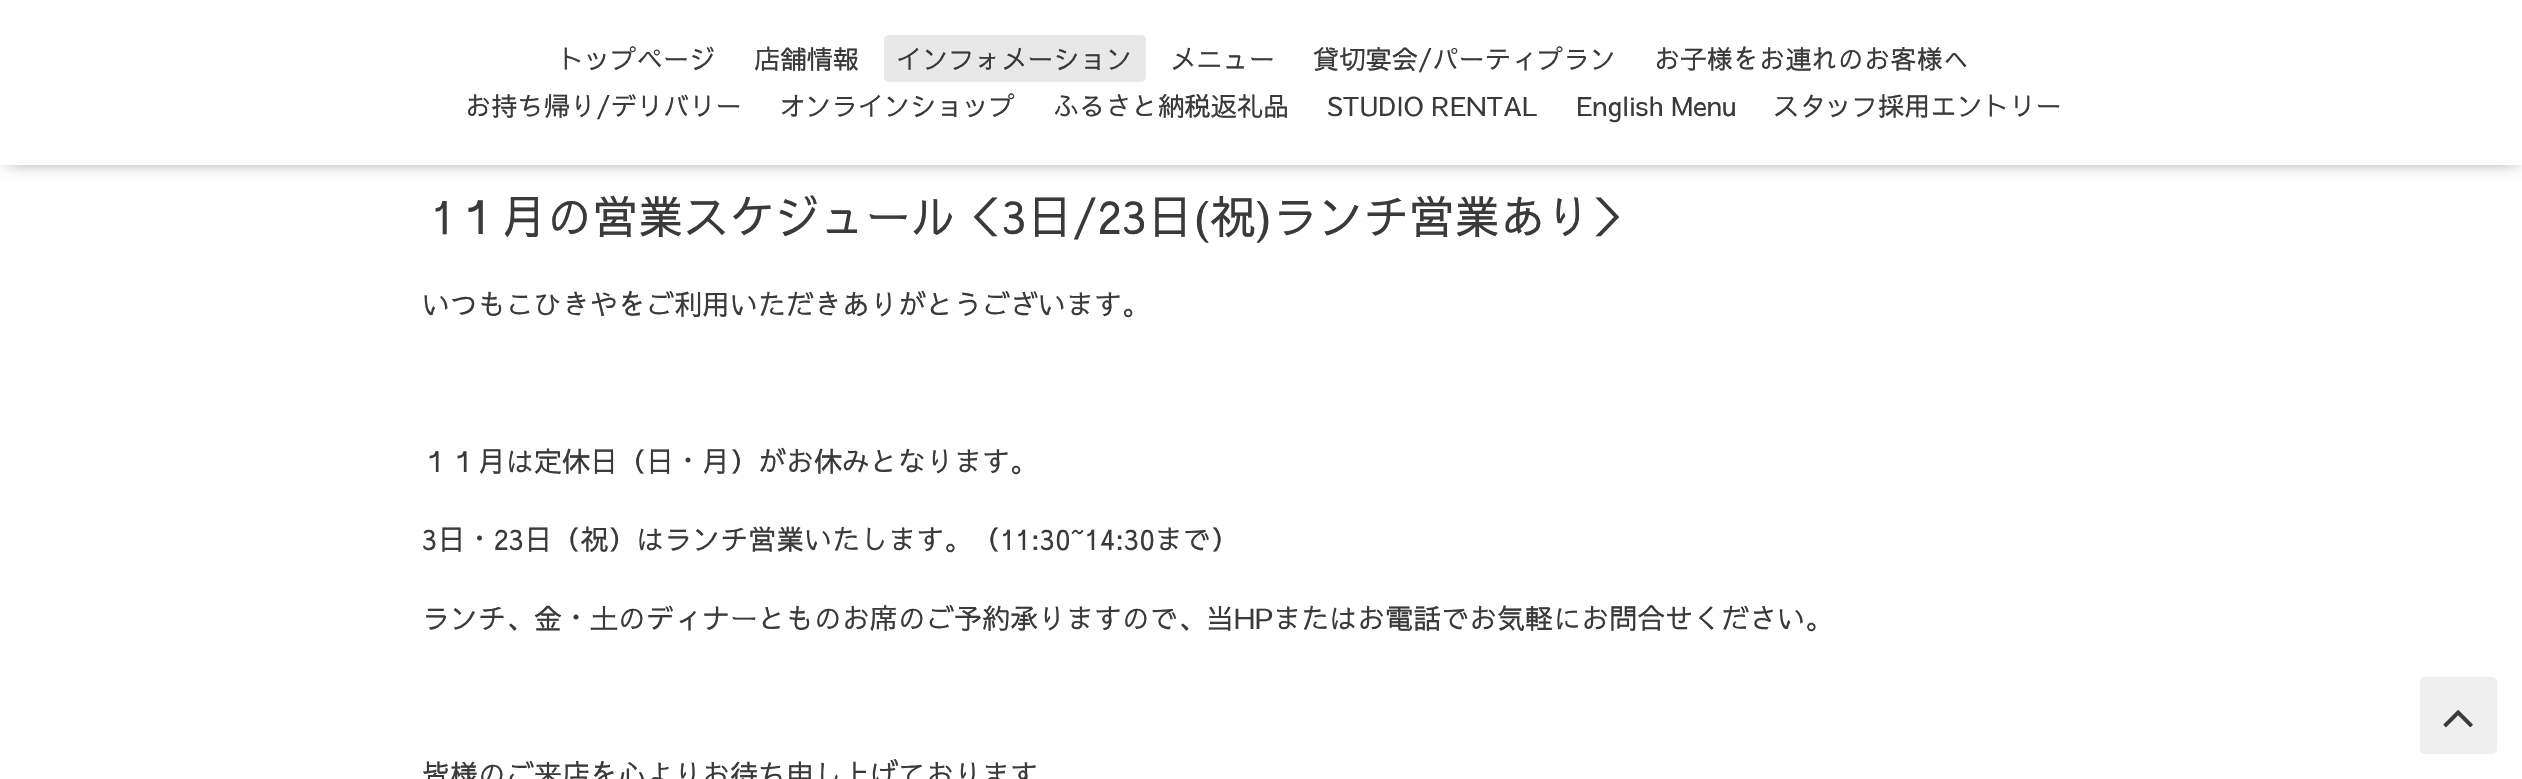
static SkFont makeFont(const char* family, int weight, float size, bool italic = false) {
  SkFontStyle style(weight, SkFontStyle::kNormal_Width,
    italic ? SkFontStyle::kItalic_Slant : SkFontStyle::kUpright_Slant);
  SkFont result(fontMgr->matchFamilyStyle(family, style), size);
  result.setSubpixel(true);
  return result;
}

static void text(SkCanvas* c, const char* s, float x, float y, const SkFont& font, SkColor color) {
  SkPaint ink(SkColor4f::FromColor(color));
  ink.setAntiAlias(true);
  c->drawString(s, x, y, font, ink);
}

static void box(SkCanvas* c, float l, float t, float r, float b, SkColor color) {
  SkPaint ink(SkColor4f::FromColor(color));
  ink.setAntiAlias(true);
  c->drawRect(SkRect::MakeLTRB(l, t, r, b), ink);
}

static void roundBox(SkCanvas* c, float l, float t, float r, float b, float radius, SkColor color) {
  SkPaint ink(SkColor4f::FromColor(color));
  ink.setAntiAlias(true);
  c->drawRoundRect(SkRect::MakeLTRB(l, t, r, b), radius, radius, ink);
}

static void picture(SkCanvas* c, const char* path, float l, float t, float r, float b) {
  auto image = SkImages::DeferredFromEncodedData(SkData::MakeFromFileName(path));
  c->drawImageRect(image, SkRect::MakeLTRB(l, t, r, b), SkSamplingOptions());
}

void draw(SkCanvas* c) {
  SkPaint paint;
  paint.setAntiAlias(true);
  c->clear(0xffffffff);
  paint.setColor(0x99000000);
  paint.setMaskFilter(SkMaskFilter::MakeBlur(kNormal_SkBlurStyle, 9));
  c->drawRect(SkRect::MakeLTRB(7, 9, 2517, 159), paint);
  paint.setMaskFilter(nullptr);
  box(c, 0, 0, 2522, 165, 0xffffffff);
  SkFont face1 = makeFont("Sawarabi Gothic", 400, 26.25f);
  text(c, "トップページ", 558, 69, face1, 0xff3a3a3a);
  text(c, "店舗情報", 754, 69, face1, 0xff3a3a3a);
  roundBox(c, 884, 35, 1146, 82, 5, 0xffe8e8e8);
  text(c, "インフォメーション", 896, 69, face1, 0xff3a3a3a);
  text(c, "メニュー", 1170, 69, face1, 0xff3a3a3a);
  text(c, "貸切宴会/パーティプラン", 1313, 69, face1, 0xff3a3a3a);
  text(c, "お子様をお連れのお客様へ", 1654, 69, face1, 0xff3a3a3a);
  text(c, "お持ち帰り/デリバリー", 465, 116, face1, 0xff3a3a3a);
  text(c, "オンラインショップ", 779, 116, face1, 0xff3a3a3a);
  text(c, "ふるさと納税返礼品", 1053, 116, face1, 0xff3a3a3a);
  text(c, "STUDIO RENTAL", 1327, 116, face1, 0xff3a3a3a);
  text(c, "English Menu", 1576, 116, face1, 0xff3a3a3a);
  text(c, "スタッフ採用エントリー", 1773, 116, face1, 0xff3a3a3a);
  SkFont face2 = makeFont("Sawarabi Gothic", 400, 45.5f);
  text(c, "1１月の営業スケジュール＜3日/23日(祝)ランチ営業あり＞", 431, 234, face2, 0xff3a3a3a);
  SkFont face3 = makeFont("Sawarabi Gothic", 400, 28);
  text(c, "いつもこひきやをご利用いただきありがとうございます。", 422, 315, face3, 0xff3a3a3a);
  text(c, "１１月は定休日（日・月）がお休みとなります。", 422, 472, face3, 0xff3a3a3a);
  text(c, "3日・23日（祝）はランチ営業いたします。（11:30~14:30まで）", 422, 550, face3, 0xff3a3a3a);
  text(c, "ランチ、金・土のディナーとものお席のご予約承りますので、当HPまたはお電話でお気軽にお問合せください。", 422, 629, face3, 0xff3a3a3a);
  text(c, "皆様のご来店を心よりお待ち申し上げております", 422, 785, face3, 0xff3a3a3a);
  roundBox(c, 2420, 677, 2497, 754, 5, 0xffefefef);
  picture(c, "img_01.png", 2443, 710, 2473, 728);
}
